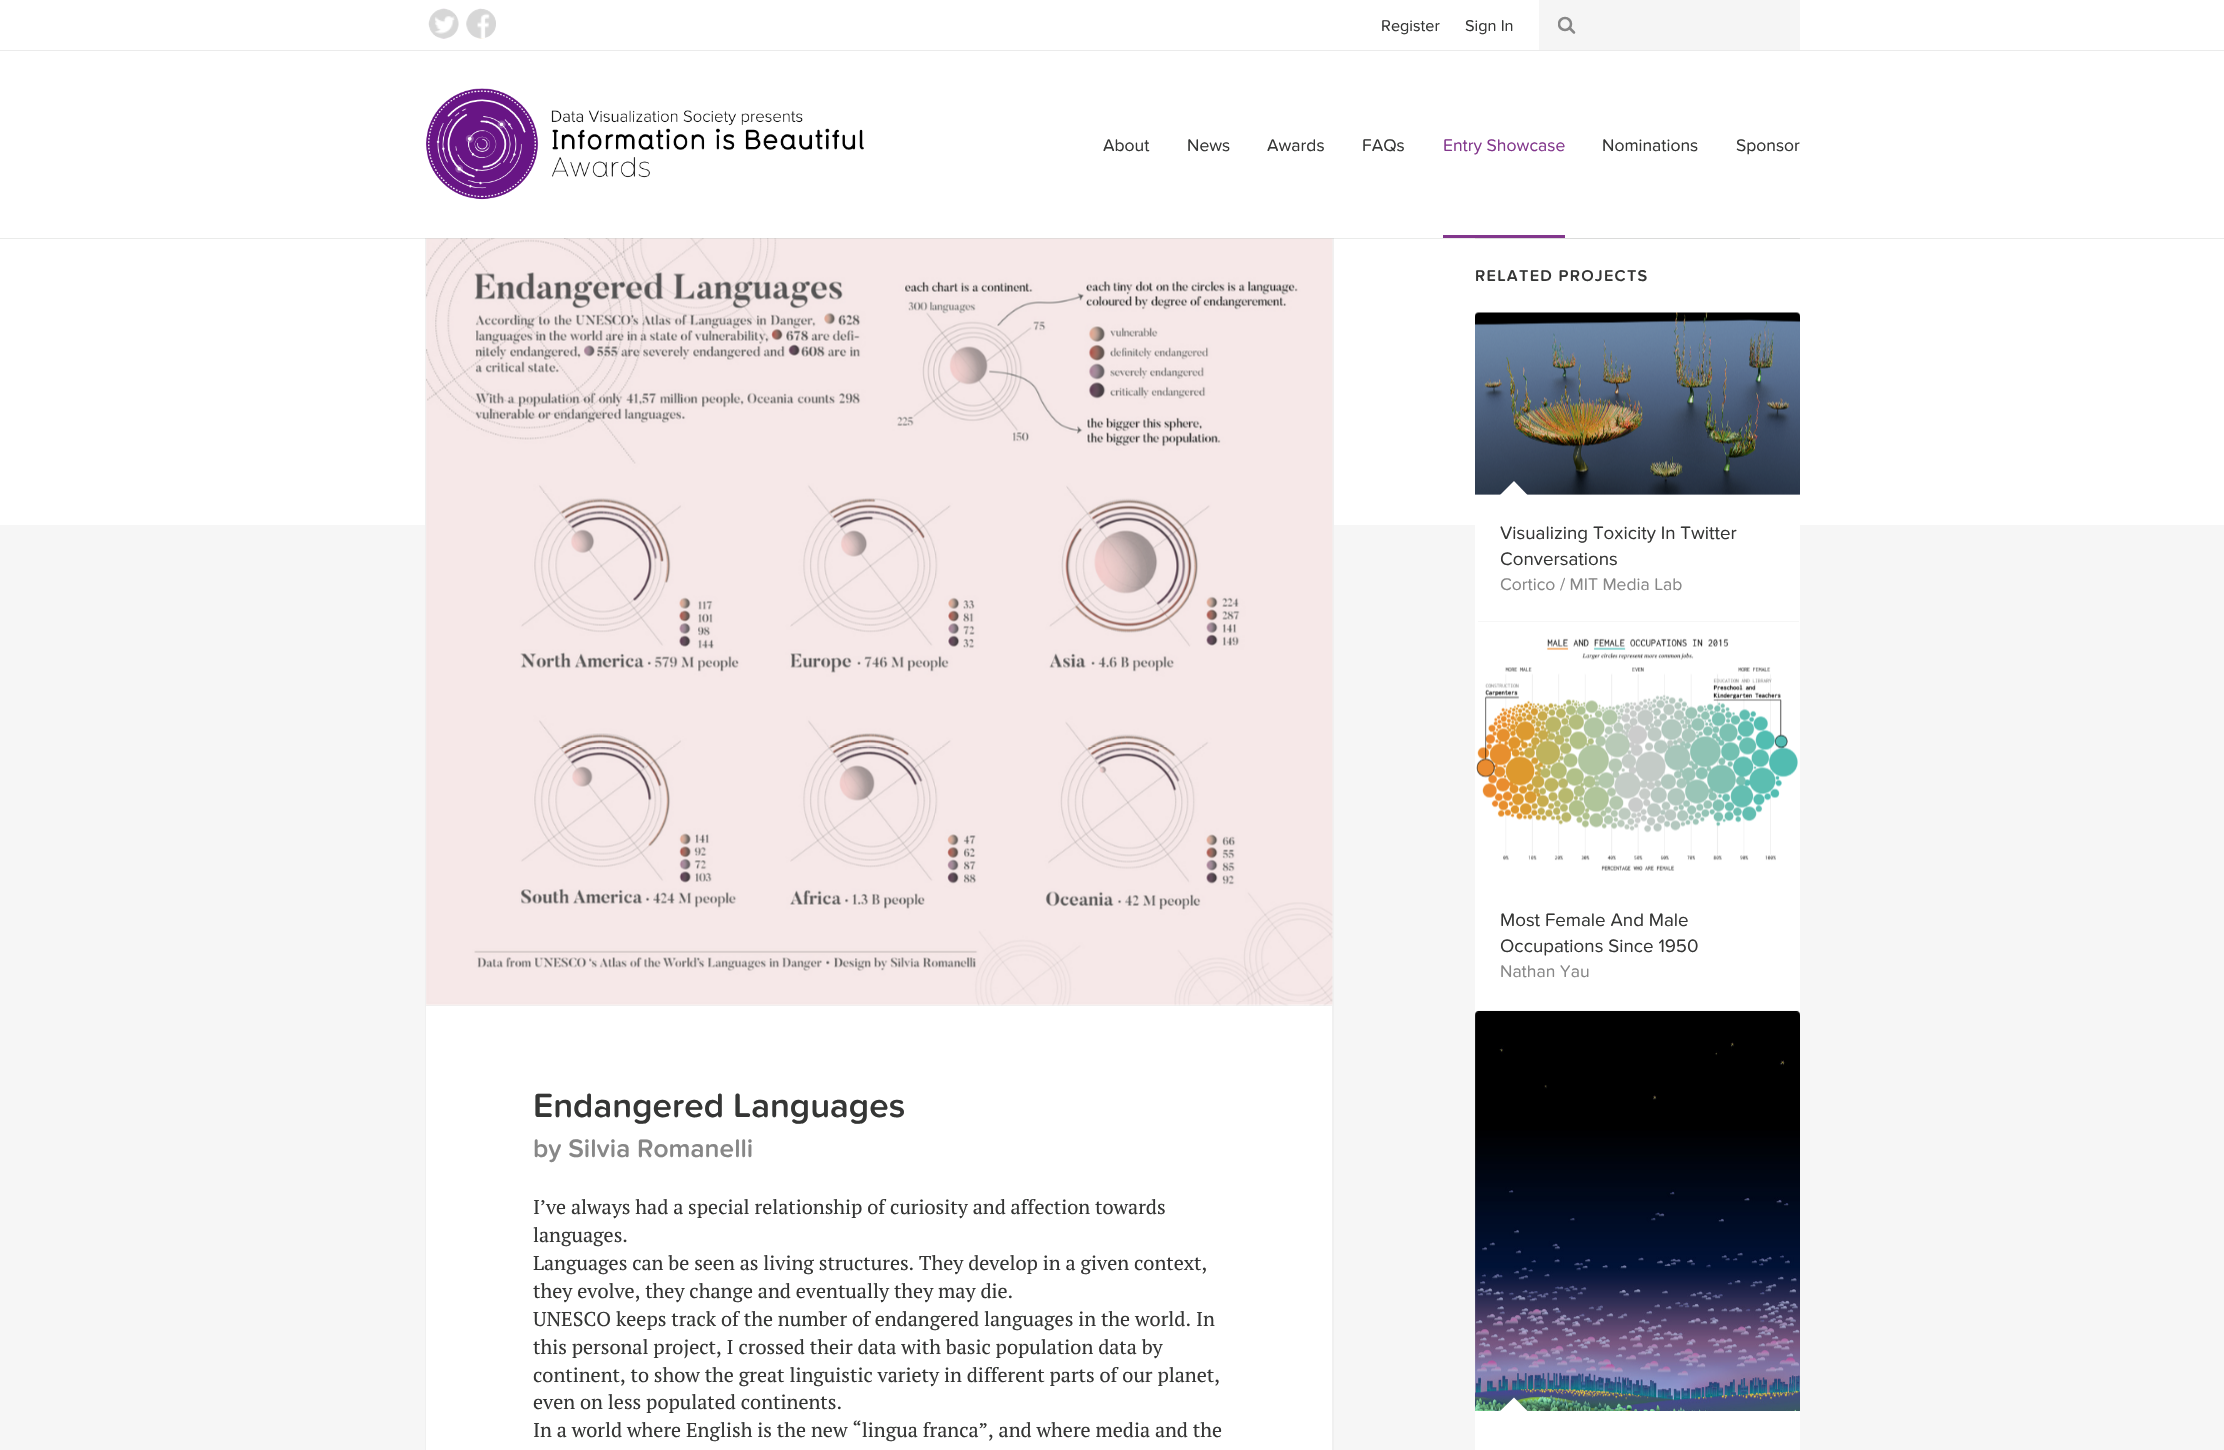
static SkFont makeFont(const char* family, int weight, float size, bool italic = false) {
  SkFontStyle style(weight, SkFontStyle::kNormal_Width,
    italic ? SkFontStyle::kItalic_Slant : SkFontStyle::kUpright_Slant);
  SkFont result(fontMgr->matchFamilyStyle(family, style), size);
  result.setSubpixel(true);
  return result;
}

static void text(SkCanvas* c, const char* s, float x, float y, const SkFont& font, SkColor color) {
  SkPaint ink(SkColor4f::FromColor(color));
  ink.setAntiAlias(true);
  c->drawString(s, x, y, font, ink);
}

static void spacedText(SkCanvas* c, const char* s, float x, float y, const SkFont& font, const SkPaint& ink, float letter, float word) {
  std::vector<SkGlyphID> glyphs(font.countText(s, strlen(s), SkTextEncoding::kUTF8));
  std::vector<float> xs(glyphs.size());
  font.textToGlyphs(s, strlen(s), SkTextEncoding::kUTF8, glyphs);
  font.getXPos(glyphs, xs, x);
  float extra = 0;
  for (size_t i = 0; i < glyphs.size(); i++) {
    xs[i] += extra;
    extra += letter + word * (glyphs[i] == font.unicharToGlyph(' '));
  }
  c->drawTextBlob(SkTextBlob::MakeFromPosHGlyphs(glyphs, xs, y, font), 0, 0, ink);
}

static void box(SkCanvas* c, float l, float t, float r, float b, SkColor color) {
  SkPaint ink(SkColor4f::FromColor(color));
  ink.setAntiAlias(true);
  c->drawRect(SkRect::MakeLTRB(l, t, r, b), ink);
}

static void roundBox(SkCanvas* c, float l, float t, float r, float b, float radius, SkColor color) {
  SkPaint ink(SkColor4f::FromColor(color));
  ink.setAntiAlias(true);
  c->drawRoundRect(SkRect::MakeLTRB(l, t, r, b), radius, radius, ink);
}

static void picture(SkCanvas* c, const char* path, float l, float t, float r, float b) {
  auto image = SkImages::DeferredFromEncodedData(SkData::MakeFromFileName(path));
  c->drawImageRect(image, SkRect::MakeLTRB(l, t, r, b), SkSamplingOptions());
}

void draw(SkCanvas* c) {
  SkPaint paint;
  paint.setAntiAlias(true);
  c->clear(0xfff6f6f6);
  box(c, 0, 0, 2224, 525, 0xffffffff);
  box(c, 0, 50, 2224, 51, 0xffebebeb);
  picture(c, "img_01.png", 428, 8, 459, 39);
  picture(c, "img_02.png", 466, 8, 496, 39);
  SkFont face1 = makeFont("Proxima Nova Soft", 400, 16.25f);
  text(c, "Register", 1381, 31, face1, 0xff353635);
  text(c, "Sign In", 1465, 31, face1, 0xff353635);
  box(c, 1539, 0, 1800, 50, 0xfff5f5f5);
  c->save();
  c->clipRect(SkRect::MakeLTRB(1558, 16, 1575, 34));
  paint.setStyle(SkPaint::kStroke_Style);
  paint.setStrokeWidth(2.5f);
  paint.setColor(0xff878787);
  c->drawCircle(1565, 24, 6, paint);
  c->restore();
  paint.setStrokeCap(SkPaint::kRound_Cap);
  paint.setStrokeJoin(SkPaint::kRound_Join);
  c->drawPath(SkPathBuilder().moveTo(1574, 32.5f).lineTo(1569.5f, 28).detach(), paint);
  box(c, 1475, 238, 1800, 239, 0xffeeeeee);
  box(c, 425, 525, 1334, 1006, 0xffffffff);
  paint.setStyle(SkPaint::kFill_Style);
  paint.setColor(0xfff0f0f0);
  c->drawPath(SkPathBuilder().moveTo(1334, 238).lineTo(1334, 1006).lineTo(1332, 1005).lineTo(1332, 238).close().detach(), paint);
  paint.setColor(0x59d4d4d4);
  c->drawPath(SkPathBuilder().moveTo(1334, 1006).lineTo(425, 1006).lineTo(426, 1005).lineTo(1332, 1005).close().detach(), paint);
  c->drawPath(SkPathBuilder().moveTo(425, 1006).lineTo(425, 238).lineTo(426, 238).lineTo(426, 1005).close().detach(), paint);
  picture(c, "img_07.png", 426, 238, 1333, 1006);
  box(c, 0, 238, 2224, 239, 0x1a353635);
  picture(c, "img_03.png", 426, 88, 864, 200);
  SkFont face2 = makeFont("Proxima Nova Soft", 400, 17.5f);
  text(c, "About", 1103, 151, face2, 0xff353635);
  text(c, "News", 1187, 151, face2, 0xff353635);
  text(c, "Awards", 1267, 151, face2, 0xff353635);
  text(c, "FAQs", 1362, 151, face2, 0xff353635);
  text(c, "Entry Showcase", 1443, 151, face2, 0xff82368c);
  box(c, 1443, 235, 1565, 238, 0xff82368c);
  text(c, "Nominations", 1602, 151, face2, 0xff353635);
  text(c, "Sponsor", 1736, 151, face2, 0xff353635);
  SkFont face3 = makeFont("Proxima Nova Soft", 600, 16.25f);
  paint.setColor(0xff353635);
  spacedText(c, "RELATED PROJECTS", 1475, 281, face3, paint, 1.25f, 0);
  roundBox(c, 1475, 313, 1800, 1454, 4, 0xffffffff);
  picture(c, "img_04.png", 1475, 312, 1800, 495);
  box(c, 1478, 621, 1799, 622, 0xfff6f6f6);
  paint.setColor(0xffffffff);
  c->drawPath(SkPathBuilder().moveTo(1527.5f, 495).lineTo(1500, 495).lineTo(1514, 481).close().detach(), paint);
  SkFont face4 = makeFont("Proxima Nova Soft", 400, 18.75f);
  text(c, "Visualizing Toxicity In Twitter", 1500, 539, face4, 0xff353635);
  text(c, "Conversations", 1500, 565, face4, 0xff353635);
  text(c, "Cortico / MIT Media Lab", 1500, 590, face2, 0xff878787);
  picture(c, "img_05.png", 1476, 638, 1798, 871);
  box(c, 1478, 1010, 1799, 1011, 0xfff6f6f6);
  text(c, "Most Female And Male", 1500, 926, face4, 0xff353635);
  text(c, "Occupations Since 1950", 1500, 952, face4, 0xff353635);
  text(c, "Nathan Yau", 1500, 977, face2, 0xff878787);
  picture(c, "img_06.png", 1475, 1011, 1800, 1411);
  c->drawPath(SkPathBuilder().moveTo(1527.5f, 1411).lineTo(1500, 1411).lineTo(1514, 1397.5f).close().detach(), paint);
  box(c, 426, 1006, 1332, 1450, 0xffffffff);
  paint.setColor(0xfff0f0f0);
  c->drawPath(SkPathBuilder(SkPathFillType::kEvenOdd).moveTo(425, 1006).lineTo(1334, 1006).lineTo(1334, 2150).cubicTo(1334, 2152, 1332, 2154, 1330, 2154).lineTo(429, 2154).cubicTo(427, 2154, 425, 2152, 425, 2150).close().moveTo(426, 1006).lineTo(1332, 1006).lineTo(1332, 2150).cubicTo(1332, 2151, 1331, 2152, 1330, 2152).lineTo(429, 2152).cubicTo(427, 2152, 426, 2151, 426, 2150).close().detach(), paint);
  SkFont face5 = makeFont("Proxima Nova Soft", 600, 35);
  text(c, "Endangered Languages", 533, 1117, face5, 0xff353635);
  SkFont face6 = makeFont("Proxima Nova Soft", 600, 26.25f);
  text(c, "by Silvia Romanelli", 533, 1157, face6, 0xff878787);
  SkFont face7 = makeFont("PT Serif", 400, 20);
  text(c, "I’ve always had a special relationship of curiosity and affection towards", 533, 1214, face7, 0xff353635);
  text(c, "languages.", 533, 1242, face7, 0xff353635);
  text(c, "Languages can be seen as living structures. They develop in a given context,", 533, 1270, face7, 0xff353635);
  text(c, "they evolve, they change and eventually they may die.", 533, 1298, face7, 0xff353635);
  text(c, "UNESCO keeps track of the number of endangered languages in the world. In", 533, 1326, face7, 0xff353635);
  text(c, "this personal project, I crossed their data with basic population data by", 533, 1354, face7, 0xff353635);
  text(c, "continent, to show the great linguistic variety in different parts of our planet,", 533, 1382, face7, 0xff353635);
  text(c, "even on less populated continents.", 533, 1409, face7, 0xff353635);
  text(c, "In a world where English is the new “lingua franca”, and where media and the", 533, 1437, face7, 0xff353635);
}
